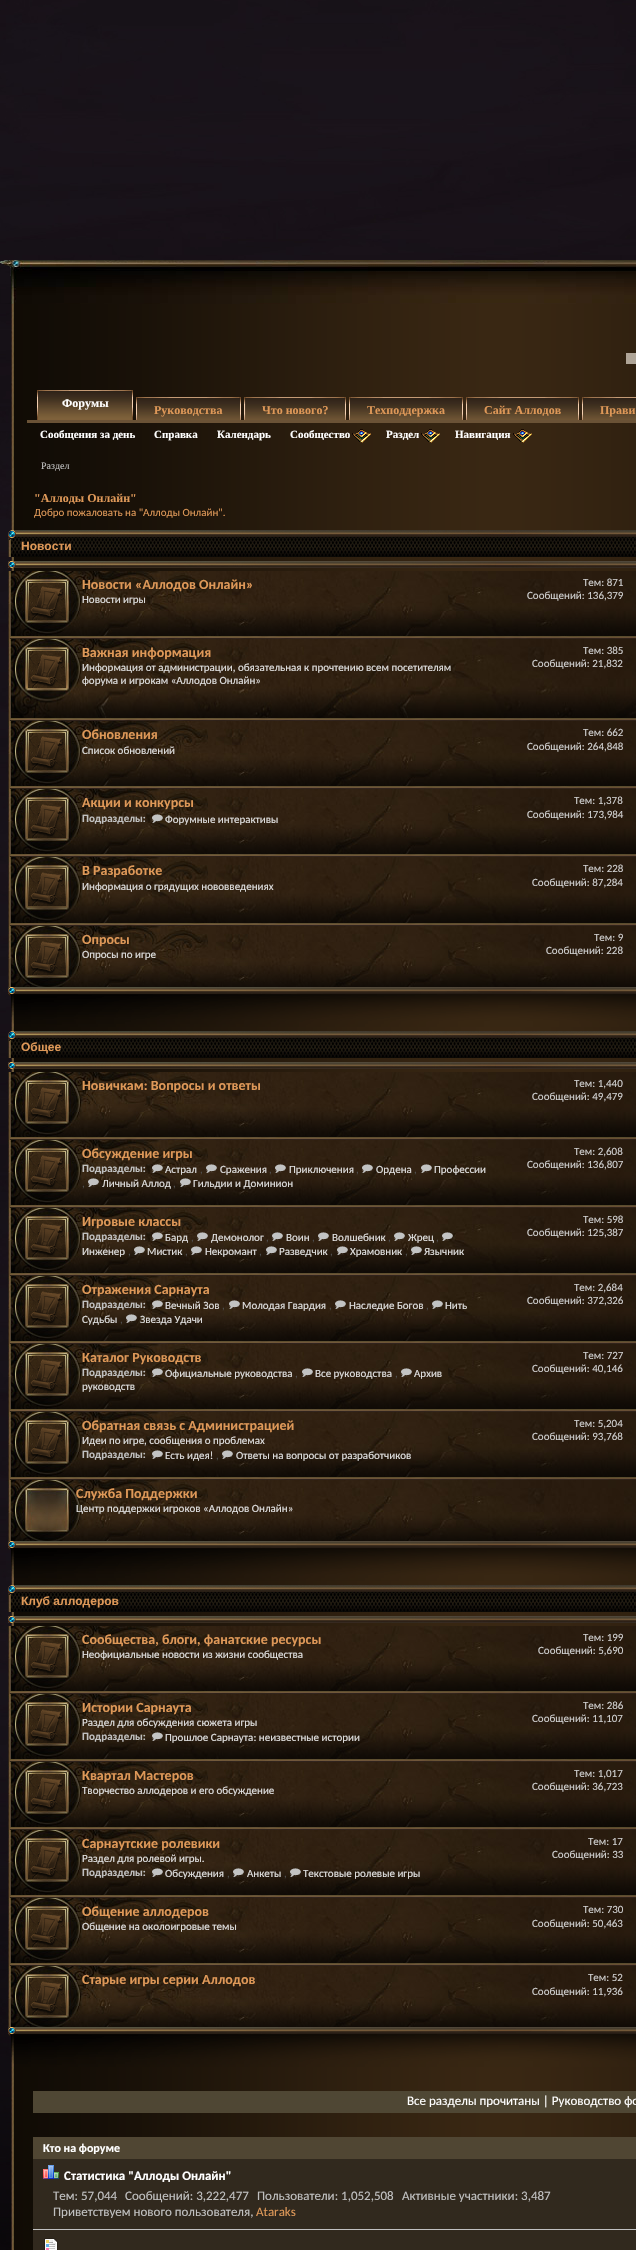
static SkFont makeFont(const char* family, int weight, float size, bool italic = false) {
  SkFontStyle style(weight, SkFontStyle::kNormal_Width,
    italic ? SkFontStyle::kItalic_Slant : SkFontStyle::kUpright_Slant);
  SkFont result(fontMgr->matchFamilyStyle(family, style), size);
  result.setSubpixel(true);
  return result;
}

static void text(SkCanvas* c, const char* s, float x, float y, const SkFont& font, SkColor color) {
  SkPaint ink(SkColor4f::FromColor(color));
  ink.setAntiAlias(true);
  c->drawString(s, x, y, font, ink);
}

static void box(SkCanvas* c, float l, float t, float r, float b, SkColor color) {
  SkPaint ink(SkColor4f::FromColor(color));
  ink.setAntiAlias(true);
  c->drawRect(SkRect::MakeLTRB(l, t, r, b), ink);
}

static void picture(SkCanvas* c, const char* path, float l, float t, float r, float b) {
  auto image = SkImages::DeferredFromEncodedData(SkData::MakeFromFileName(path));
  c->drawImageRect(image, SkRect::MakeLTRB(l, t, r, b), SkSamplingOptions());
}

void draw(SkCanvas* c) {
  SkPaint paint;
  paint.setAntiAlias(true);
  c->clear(0xffffffff);
  picture(c, "img_01.png", 0, 0, 636, 2250);
  picture(c, "img_02.png", 11, 260, 636, 2250);
  picture(c, "img_03.png", 0, 260, 636, 304);
  box(c, 626, 353, 636, 364, 0xffafa597);
  box(c, 27, 420, 636, 423, 0xff6a5236);
  picture(c, "img_04.png", 37, 390, 69, 420);
  picture(c, "img_05.png", 69, 390, 133, 420);
  SkFont face1 = makeFont("Liberation Serif", 700, 12);
  text(c, "Форумы", 62, 407, face1, 0xffffffff);
  SkFont face2 = makeFont("Liberation Serif", 700, 11);
  text(c, "Сообщения за день", 40, 438, face2, 0xffffffff);
  text(c, "Справка", 154, 438, face2, 0xffffffff);
  text(c, "Календарь", 217, 438, face2, 0xffffffff);
  text(c, "Сообщество", 290, 438, face2, 0xffffffff);
  picture(c, "img_06.png", 352, 429, 371, 443);
  text(c, "Раздел", 386, 438, face2, 0xffffffff);
  picture(c, "img_07.png", 421, 429, 440, 443);
  text(c, "Навигация", 455, 438, face2, 0xffffffff);
  picture(c, "img_08.png", 513, 429, 532, 443);
  picture(c, "img_09.png", 500, 397, 545, 420);
  picture(c, "img_10.png", 466, 397, 500, 420);
  picture(c, "img_11.png", 545, 397, 579, 420);
  text(c, "Сайт Аллодов", 484, 414, face1, 0xffde9858);
  picture(c, "img_12.png", 170, 397, 207, 420);
  picture(c, "img_10.png", 136, 397, 170, 420);
  picture(c, "img_11.png", 207, 397, 241, 420);
  text(c, "Руководства", 154, 414, face1, 0xffde9858);
  picture(c, "img_13.png", 279, 397, 312, 420);
  picture(c, "img_14.png", 244, 397, 279, 420);
  picture(c, "img_11.png", 312, 397, 346, 420);
  text(c, "Что нового?", 262, 414, face1, 0xffde9858);
  picture(c, "img_15.png", 383, 397, 429, 420);
  picture(c, "img_10.png", 349, 397, 383, 420);
  picture(c, "img_11.png", 429, 397, 463, 420);
  text(c, "Техподдержка", 367, 414, face1, 0xffde9858);
  picture(c, "img_16.png", 616, 397, 636, 420);
  picture(c, "img_10.png", 582, 397, 616, 420);
  text(c, "Прави", 600, 414, face1, 0xffde9858);
  SkFont face3 = makeFont("Liberation Serif", 400, 10);
  text(c, "Раздел", 41, 469, face3, 0xffc0c0c0);
  text(c, "\"Аллоды Онлайн\"", 34, 502, face1, 0xffde9858);
  SkFont face4 = makeFont("Carlito", 400, 11);
  text(c, "Добро пожаловать на \"Аллоды Онлайн\".", 34, 516, face4, 0xffde9858);
  picture(c, "img_17.png", 8, 530, 636, 557);
  SkFont face5 = makeFont("Liberation Sans", 700, 12);
  text(c, "Новости", 21, 550, face5, 0xffde9858);
  picture(c, "img_18.png", 8, 561, 636, 568);
  picture(c, "img_19.png", 8, 571, 636, 636);
  picture(c, "img_20.png", 28, 582, 66, 620);
  SkFont face6 = makeFont("Carlito", 700, 14);
  text(c, "Новости «Аллодов Онлайн»", 82, 589, face6, 0xffde9858);
  picture(c, "img_21.png", 8, 604, 636, 639);
  text(c, "Новости игры", 82, 603, face4, 0xffe0e0e0);
  text(c, "Тем: 871", 583, 586, face4, 0xffd0d0d0);
  text(c, "Сообщений: 136,379", 527, 599, face4, 0xffd0d0d0);
  picture(c, "img_22.png", 8, 639, 636, 718);
  picture(c, "img_20.png", 28, 650, 66, 688);
  text(c, "Важная информация", 82, 657, face6, 0xffde9858);
  text(c, "Информация от администрации, обязательная к прочтению всем посетителям", 82, 671, face4, 0xffe0e0e0);
  text(c, "форума и игрокам «Аллодов Онлайн»", 82, 684, face4, 0xffe0e0e0);
  picture(c, "img_23.png", 8, 686, 636, 721);
  text(c, "Тем: 385", 583, 654, face4, 0xffd0d0d0);
  text(c, "Сообщений: 21,832", 532, 667, face4, 0xffd0d0d0);
  picture(c, "img_19.png", 8, 721, 636, 786);
  picture(c, "img_20.png", 28, 732, 66, 770);
  text(c, "Обновления", 82, 739, face6, 0xffde9858);
  picture(c, "img_21.png", 8, 754, 636, 789);
  text(c, "Список обновлений", 82, 754, face4, 0xffe0e0e0);
  text(c, "Тем: 662", 583, 736, face4, 0xffd0d0d0);
  text(c, "Сообщений: 264,848", 527, 750, face4, 0xffd0d0d0);
  picture(c, "img_19.png", 8, 789, 636, 854);
  picture(c, "img_20.png", 28, 800, 66, 838);
  text(c, "Акции и конкурсы", 82, 807, face6, 0xffde9858);
  picture(c, "img_21.png", 8, 822, 636, 857);
  SkFont face7 = makeFont("Carlito", 700, 11);
  text(c, "Подразделы:", 82, 822, face7, 0xffc0c0c0);
  picture(c, "img_24.png", 152, 814, 163, 823);
  text(c, "Форумные интерактивы", 165, 823, face4, 0xffe0e0e0);
  text(c, "Тем: 1,378", 574, 804, face4, 0xffd0d0d0);
  text(c, "Сообщений: 173,984", 527, 818, face4, 0xffd0d0d0);
  picture(c, "img_25.png", 8, 857, 636, 923);
  picture(c, "img_20.png", 28, 868, 66, 906);
  text(c, "В Разработке", 82, 875, face6, 0xffde9858);
  picture(c, "img_26.png", 8, 891, 636, 926);
  text(c, "Информация о грядущих нововведениях", 82, 890, face4, 0xffe0e0e0);
  text(c, "Тем: 228", 583, 872, face4, 0xffd0d0d0);
  text(c, "Сообщений: 87,284", 532, 886, face4, 0xffd0d0d0);
  picture(c, "img_27.png", 8, 926, 636, 987);
  picture(c, "img_20.png", 28, 937, 66, 975);
  text(c, "Опросы", 82, 944, face6, 0xffde9858);
  picture(c, "img_28.png", 8, 959, 636, 987);
  text(c, "Опросы по игре", 82, 958, face4, 0xffe0e0e0);
  text(c, "Тем: 9", 594, 941, face4, 0xffd0d0d0);
  text(c, "Сообщений: 228", 546, 954, face4, 0xffd0d0d0);
  picture(c, "img_29.png", 8, 987, 636, 1027);
  picture(c, "img_30.png", 8, 1031, 636, 1058);
  text(c, "Общее", 21, 1051, face5, 0xffde9858);
  picture(c, "img_18.png", 8, 1062, 636, 1069);
  picture(c, "img_19.png", 8, 1072, 636, 1137);
  picture(c, "img_20.png", 28, 1083, 66, 1121);
  text(c, "Новичкам: Вопросы и ответы", 82, 1090, face6, 0xffde9858);
  picture(c, "img_21.png", 8, 1105, 636, 1140);
  text(c, "Тем: 1,440", 574, 1087, face4, 0xffd0d0d0);
  text(c, "Сообщений: 49,479", 532, 1100, face4, 0xffd0d0d0);
  picture(c, "img_19.png", 8, 1140, 636, 1205);
  picture(c, "img_20.png", 28, 1151, 66, 1189);
  text(c, "Обсуждение игры", 82, 1158, face6, 0xffde9858);
  picture(c, "img_21.png", 8, 1173, 636, 1208);
  text(c, "Подразделы:", 82, 1172, face7, 0xffc0c0c0);
  picture(c, "img_31.png", 152, 1164, 163, 1173);
  text(c, "Астрал", 165, 1173, face4, 0xffe0e0e0);
  text(c, ",", 200, 1173, face4, 0xff4e4e4e);
  picture(c, "img_32.png", 206, 1164, 217, 1173);
  text(c, "Сражения", 220, 1173, face4, 0xffe0e0e0);
  text(c, ",", 269, 1173, face4, 0xff4e4e4e);
  picture(c, "img_33.png", 275, 1164, 286, 1173);
  text(c, "Приключения", 289, 1173, face4, 0xffe0e0e0);
  text(c, ",", 356, 1173, face4, 0xff4e4e4e);
  picture(c, "img_34.png", 362, 1164, 373, 1173);
  text(c, "Ордена", 376, 1173, face4, 0xffe0e0e0);
  text(c, ",", 414, 1173, face4, 0xff4e4e4e);
  picture(c, "img_35.png", 421, 1164, 432, 1173);
  text(c, "Профессии", 434, 1173, face4, 0xffe0e0e0);
  text(c, ",", 82, 1187, face4, 0xff4e4e4e);
  picture(c, "img_36.png", 88, 1178, 99, 1187);
  text(c, "Личный Аллод", 102, 1187, face4, 0xffe0e0e0);
  text(c, ",", 173, 1187, face4, 0xff4e4e4e);
  picture(c, "img_37.png", 180, 1178, 191, 1187);
  text(c, "Гильдии и Доминион", 193, 1187, face4, 0xffe0e0e0);
  text(c, "Тем: 2,608", 574, 1155, face4, 0xffd0d0d0);
  text(c, "Сообщений: 136,807", 527, 1168, face4, 0xffd0d0d0);
  picture(c, "img_19.png", 8, 1208, 636, 1273);
  picture(c, "img_20.png", 28, 1219, 66, 1257);
  text(c, "Игровые классы", 82, 1226, face6, 0xffde9858);
  picture(c, "img_21.png", 8, 1241, 636, 1276);
  text(c, "Подразделы:", 82, 1240, face7, 0xffc0c0c0);
  picture(c, "img_31.png", 152, 1232, 163, 1241);
  text(c, "Бард", 165, 1241, face4, 0xffe0e0e0);
  text(c, ",", 191, 1241, face4, 0xff4e4e4e);
  picture(c, "img_38.png", 197, 1232, 208, 1241);
  text(c, "Демонолог", 211, 1241, face4, 0xffe0e0e0);
  text(c, ",", 266, 1241, face4, 0xff4e4e4e);
  picture(c, "img_39.png", 272, 1232, 283, 1241);
  text(c, "Воин", 286, 1241, face4, 0xffe0e0e0);
  text(c, ",", 312, 1241, face4, 0xff4e4e4e);
  picture(c, "img_40.png", 318, 1232, 329, 1241);
  text(c, "Волшебник", 332, 1241, face4, 0xffe0e0e0);
  text(c, ",", 388, 1241, face4, 0xff4e4e4e);
  picture(c, "img_41.png", 394, 1232, 405, 1241);
  text(c, "Жрец", 408, 1241, face4, 0xffe0e0e0);
  text(c, ",", 436, 1241, face4, 0xff4e4e4e);
  picture(c, "img_42.png", 442, 1232, 453, 1241);
  text(c, "Инженер", 82, 1255, face4, 0xffe0e0e0);
  text(c, ",", 128, 1255, face4, 0xff4e4e4e);
  picture(c, "img_43.png", 134, 1246, 145, 1255);
  text(c, "Мистик", 147, 1255, face4, 0xffe0e0e0);
  text(c, ",", 185, 1255, face4, 0xff4e4e4e);
  picture(c, "img_44.png", 191, 1246, 202, 1255);
  text(c, "Некромант", 205, 1255, face4, 0xffe0e0e0);
  text(c, ",", 259, 1255, face4, 0xff4e4e4e);
  picture(c, "img_45.png", 266, 1246, 277, 1255);
  text(c, "Разведчик", 279, 1255, face4, 0xffe0e0e0);
  text(c, ",", 330, 1255, face4, 0xff4e4e4e);
  picture(c, "img_46.png", 337, 1246, 348, 1255);
  text(c, "Храмовник", 350, 1255, face4, 0xffe0e0e0);
  text(c, ",", 405, 1255, face4, 0xff4e4e4e);
  picture(c, "img_47.png", 411, 1246, 422, 1255);
  text(c, "Язычник", 424, 1255, face4, 0xffe0e0e0);
  text(c, "Тем: 598", 583, 1223, face4, 0xffd0d0d0);
  text(c, "Сообщений: 125,387", 527, 1236, face4, 0xffd0d0d0);
  picture(c, "img_19.png", 8, 1276, 636, 1341);
  picture(c, "img_20.png", 28, 1287, 66, 1325);
  text(c, "Отражения Сарнаута", 82, 1294, face6, 0xffde9858);
  picture(c, "img_21.png", 8, 1309, 636, 1344);
  text(c, "Подразделы:", 82, 1308, face7, 0xffc0c0c0);
  picture(c, "img_31.png", 152, 1300, 163, 1309);
  text(c, "Вечный Зов", 165, 1309, face4, 0xffe0e0e0);
  text(c, ",", 222, 1309, face4, 0xff4e4e4e);
  picture(c, "img_48.png", 229, 1300, 240, 1309);
  text(c, "Молодая Гвардия", 242, 1309, face4, 0xffe0e0e0);
  text(c, ",", 329, 1309, face4, 0xff4e4e4e);
  picture(c, "img_49.png", 335, 1300, 346, 1309);
  text(c, "Наследие Богов", 349, 1309, face4, 0xffe0e0e0);
  text(c, ",", 426, 1309, face4, 0xff4e4e4e);
  picture(c, "img_50.png", 432, 1300, 443, 1309);
  text(c, "Нить", 445, 1309, face4, 0xffe0e0e0);
  text(c, "Судьбы", 82, 1323, face4, 0xffe0e0e0);
  text(c, ",", 120, 1323, face4, 0xff4e4e4e);
  picture(c, "img_51.png", 126, 1314, 137, 1323);
  text(c, "Звезда Удачи", 140, 1323, face4, 0xffe0e0e0);
  text(c, "Тем: 2,684", 574, 1291, face4, 0xffd0d0d0);
  text(c, "Сообщений: 372,326", 527, 1304, face4, 0xffd0d0d0);
  picture(c, "img_19.png", 8, 1344, 636, 1409);
  picture(c, "img_20.png", 28, 1355, 66, 1393);
  text(c, "Каталог Руководств", 82, 1362, face6, 0xffde9858);
  picture(c, "img_21.png", 8, 1377, 636, 1412);
  text(c, "Подразделы:", 82, 1376, face7, 0xffc0c0c0);
  picture(c, "img_31.png", 152, 1368, 163, 1377);
  text(c, "Официальные руководства", 165, 1377, face4, 0xffe0e0e0);
  text(c, ",", 295, 1377, face4, 0xff4e4e4e);
  picture(c, "img_52.png", 302, 1368, 313, 1377);
  text(c, "Все руководства", 315, 1377, face4, 0xffe0e0e0);
  text(c, ",", 395, 1377, face4, 0xff4e4e4e);
  picture(c, "img_53.png", 401, 1368, 412, 1377);
  text(c, "Архив", 414, 1377, face4, 0xffe0e0e0);
  text(c, "руководств", 82, 1390, face4, 0xffe0e0e0);
  text(c, "Тем: 727", 583, 1359, face4, 0xffd0d0d0);
  text(c, "Сообщений: 40,146", 532, 1372, face4, 0xffd0d0d0);
  picture(c, "img_19.png", 8, 1412, 636, 1477);
  picture(c, "img_20.png", 28, 1423, 66, 1461);
  text(c, "Обратная связь с Администрацией", 82, 1430, face6, 0xffde9858);
  picture(c, "img_21.png", 8, 1445, 636, 1480);
  text(c, "Идеи по игре, сообщения о проблемах", 82, 1444, face4, 0xffe0e0e0);
  text(c, "Подразделы:", 82, 1458, face7, 0xffc0c0c0);
  picture(c, "img_54.png", 152, 1450, 163, 1459);
  text(c, "Есть идея!", 165, 1459, face4, 0xffe0e0e0);
  text(c, ",", 216, 1459, face4, 0xff4e4e4e);
  picture(c, "img_55.png", 222, 1450, 233, 1459);
  text(c, "Ответы на вопросы от разработчиков", 236, 1459, face4, 0xffe0e0e0);
  text(c, "Тем: 5,204", 574, 1427, face4, 0xffd0d0d0);
  text(c, "Сообщений: 93,768", 532, 1440, face4, 0xffd0d0d0);
  picture(c, "img_27.png", 8, 1480, 636, 1541);
  text(c, "Служба Поддержки", 76, 1498, face6, 0xffde9858);
  picture(c, "img_56.png", 8, 1513, 636, 1541);
  text(c, "Центр поддержки игроков «Аллодов Онлайн»", 76, 1512, face4, 0xffe0e0e0);
  picture(c, "img_57.png", 8, 1541, 636, 1581);
  picture(c, "img_58.png", 8, 1585, 636, 1612);
  text(c, "Клуб аллодеров", 21, 1605, face5, 0xffde9858);
  picture(c, "img_18.png", 8, 1616, 636, 1623);
  picture(c, "img_19.png", 8, 1626, 636, 1691);
  picture(c, "img_20.png", 28, 1637, 66, 1675);
  text(c, "Сообщества, блоги, фанатские ресурсы", 82, 1644, face6, 0xffde9858);
  picture(c, "img_21.png", 8, 1659, 636, 1694);
  text(c, "Неофициальные новости из жизни сообщества", 82, 1658, face4, 0xffe0e0e0);
  text(c, "Тем: 199", 583, 1641, face4, 0xffd0d0d0);
  text(c, "Сообщений: 5,690", 538, 1654, face4, 0xffd0d0d0);
  picture(c, "img_19.png", 8, 1694, 636, 1759);
  picture(c, "img_20.png", 28, 1705, 66, 1743);
  text(c, "Истории Сарнаута", 82, 1712, face6, 0xffde9858);
  picture(c, "img_21.png", 8, 1727, 636, 1762);
  text(c, "Раздел для обсуждения сюжета игры", 82, 1726, face4, 0xffe0e0e0);
  text(c, "Подразделы:", 82, 1740, face7, 0xffc0c0c0);
  picture(c, "img_54.png", 152, 1732, 163, 1741);
  text(c, "Прошлое Сарнаута: неизвестные истории", 165, 1741, face4, 0xffe0e0e0);
  text(c, "Тем: 286", 583, 1709, face4, 0xffd0d0d0);
  text(c, "Сообщений: 11,107", 532, 1722, face4, 0xffd0d0d0);
  picture(c, "img_19.png", 8, 1762, 636, 1827);
  picture(c, "img_20.png", 28, 1773, 66, 1811);
  text(c, "Квартал Мастеров", 82, 1780, face6, 0xffde9858);
  picture(c, "img_21.png", 8, 1795, 636, 1830);
  text(c, "Творчество аллодеров и его обсуждение", 82, 1794, face4, 0xffe0e0e0);
  text(c, "Тем: 1,017", 574, 1777, face4, 0xffd0d0d0);
  text(c, "Сообщений: 36,723", 532, 1790, face4, 0xffd0d0d0);
  picture(c, "img_19.png", 8, 1830, 636, 1895);
  picture(c, "img_20.png", 28, 1841, 66, 1879);
  text(c, "Сарнаутские ролевики", 82, 1848, face6, 0xffde9858);
  picture(c, "img_21.png", 8, 1863, 636, 1898);
  text(c, "Раздел для ролевой игры.", 82, 1862, face4, 0xffe0e0e0);
  text(c, "Подразделы:", 82, 1876, face7, 0xffc0c0c0);
  picture(c, "img_54.png", 152, 1868, 163, 1877);
  text(c, "Обсуждения", 165, 1877, face4, 0xffe0e0e0);
  text(c, ",", 227, 1877, face4, 0xff4e4e4e);
  picture(c, "img_59.png", 233, 1868, 244, 1877);
  text(c, "Анкеты", 247, 1877, face4, 0xffe0e0e0);
  text(c, ",", 284, 1877, face4, 0xff4e4e4e);
  picture(c, "img_60.png", 290, 1868, 301, 1877);
  text(c, "Текстовые ролевые игры", 303, 1877, face4, 0xffe0e0e0);
  text(c, "Тем: 17", 588, 1845, face4, 0xffd0d0d0);
  text(c, "Сообщений: 33", 552, 1858, face4, 0xffd0d0d0);
  picture(c, "img_19.png", 8, 1898, 636, 1963);
  picture(c, "img_20.png", 28, 1909, 66, 1947);
  text(c, "Общение аллодеров", 82, 1916, face6, 0xffde9858);
  picture(c, "img_21.png", 8, 1931, 636, 1966);
  text(c, "Общение на околоигровые темы", 82, 1930, face4, 0xffe0e0e0);
  text(c, "Тем: 730", 583, 1913, face4, 0xffd0d0d0);
  text(c, "Сообщений: 50,463", 532, 1927, face4, 0xffd0d0d0);
  picture(c, "img_27.png", 8, 1966, 636, 2027);
  picture(c, "img_20.png", 28, 1977, 66, 2015);
  text(c, "Старые игры серии Аллодов", 82, 1984, face6, 0xffde9858);
  picture(c, "img_28.png", 8, 1999, 636, 2027);
  text(c, "Тем: 52", 588, 1981, face4, 0xffd0d0d0);
  text(c, "Сообщений: 11,936", 532, 1995, face4, 0xffd0d0d0);
  picture(c, "img_61.png", 8, 2027, 636, 2067);
  box(c, 33, 2091, 636, 2113, 0xff4f4734);
  SkFont face8 = makeFont("Carlito", 400, 13);
  text(c, "Все разделы прочитаны | Руководство фо", 407, 2105, face8, 0xffffffff);
  box(c, 33, 2137, 636, 2159, 0xff504633);
  SkFont face9 = makeFont("Carlito", 700, 12);
  text(c, "Кто на форуме", 43, 2152, face9, 0xffffffff);
  box(c, 33, 2159, 636, 2250, 0xff31291e);
  box(c, 33, 2229, 636, 2230, 0xffc0c0c0);
  picture(c, "img_62.png", 43, 2165, 59, 2179);
  SkFont face10 = makeFont("Carlito", 700, 13);
  text(c, "Статистика \"Аллоды Онлайн\"", 64, 2180, face10, 0xffffffff);
  text(c, "Тем: 57,044", 53, 2200, face8, 0xffc0c0c0);
  text(c, "Сообщений: 3,222,477", 125, 2200, face8, 0xffc0c0c0);
  text(c, "Пользователи: 1,052,508", 257, 2200, face8, 0xffc0c0c0);
  text(c, "Активные участники: 3,487", 402, 2200, face8, 0xffc0c0c0);
  text(c, "Приветствуем нового пользователя,", 53, 2216, face8, 0xffc0c0c0);
  text(c, "Ataraks", 256, 2216, face8, 0xffde9858);
  picture(c, "img_63.png", 44, 2238, 58, 2250);
}
